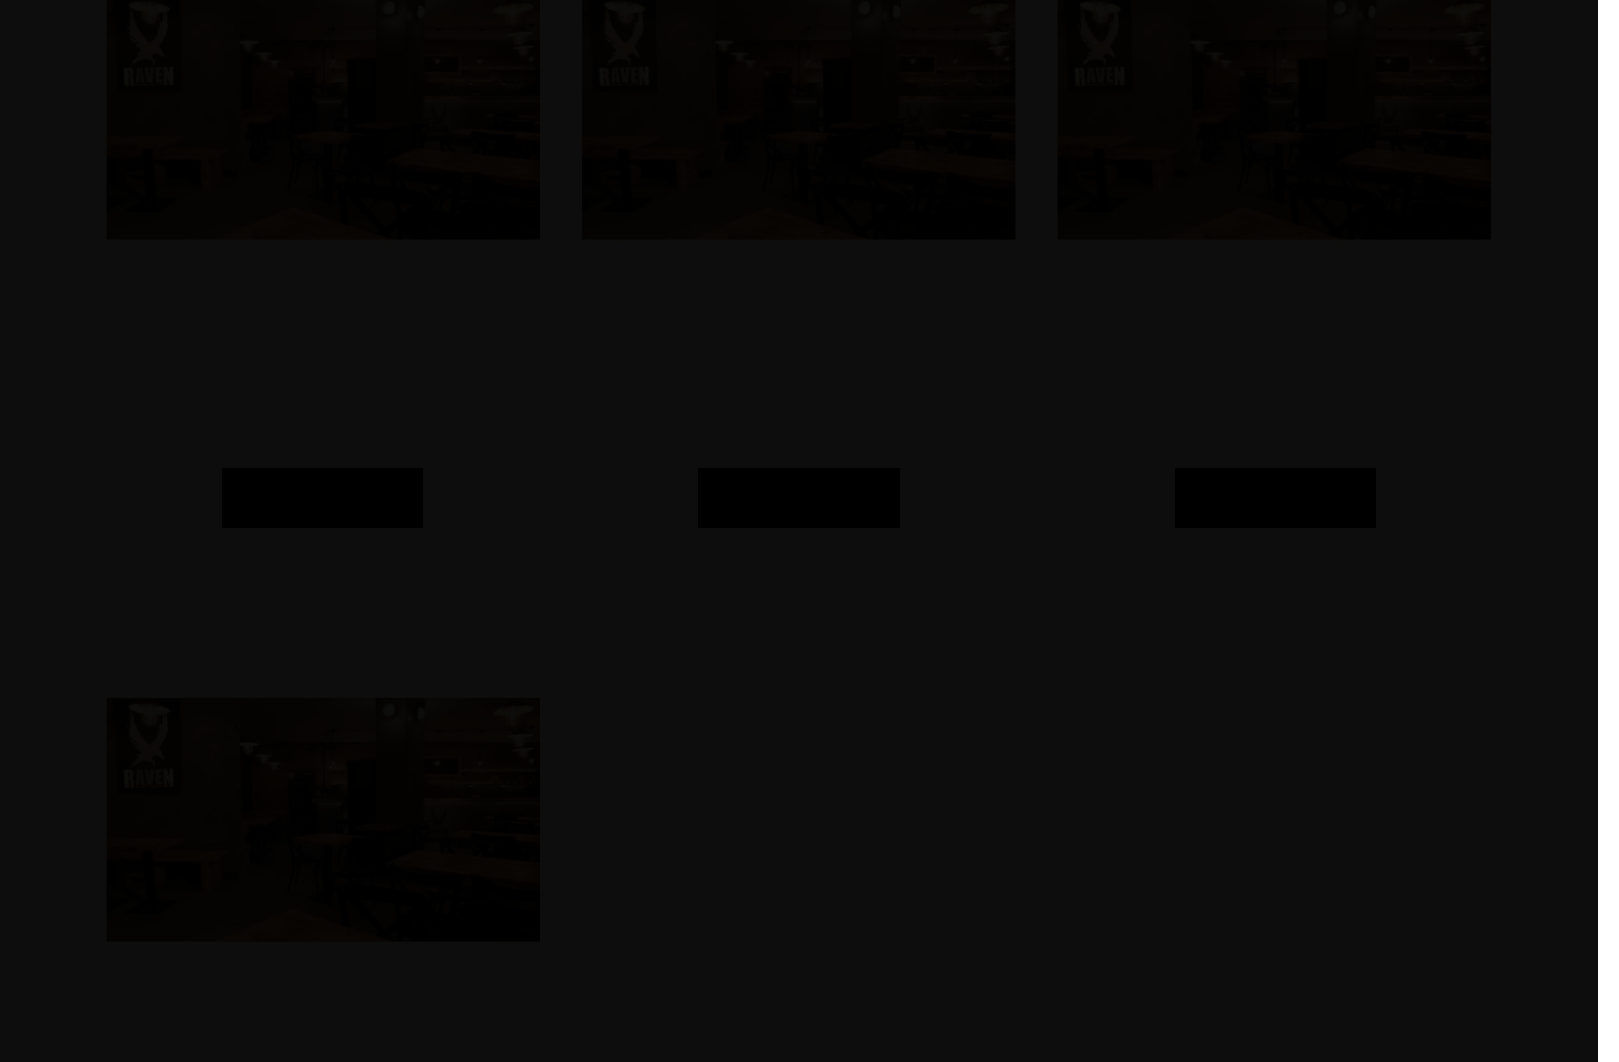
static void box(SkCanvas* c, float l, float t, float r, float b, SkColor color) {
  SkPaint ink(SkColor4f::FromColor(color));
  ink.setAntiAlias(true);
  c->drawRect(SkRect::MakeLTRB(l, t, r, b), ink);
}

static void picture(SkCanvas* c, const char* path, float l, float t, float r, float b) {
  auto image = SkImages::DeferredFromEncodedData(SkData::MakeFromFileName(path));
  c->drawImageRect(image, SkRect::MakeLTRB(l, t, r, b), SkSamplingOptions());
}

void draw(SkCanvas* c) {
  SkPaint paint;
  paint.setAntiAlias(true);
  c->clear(0xffffffff);
  box(c, 0, 0, 1598, 1062, 0xff0d0d0d);
  picture(c, "img_01.png", 106, 0, 540, 281);
  box(c, 222, 468, 423, 528, 0xff000000);
  picture(c, "img_02.png", 582, 0, 1016, 281);
  box(c, 698, 468, 900, 528, 0xff000000);
  picture(c, "img_03.png", 1057, 0, 1491, 281);
  box(c, 1175, 468, 1376, 528, 0xff000000);
  picture(c, "img_04.png", 106, 657, 540, 983);
}
